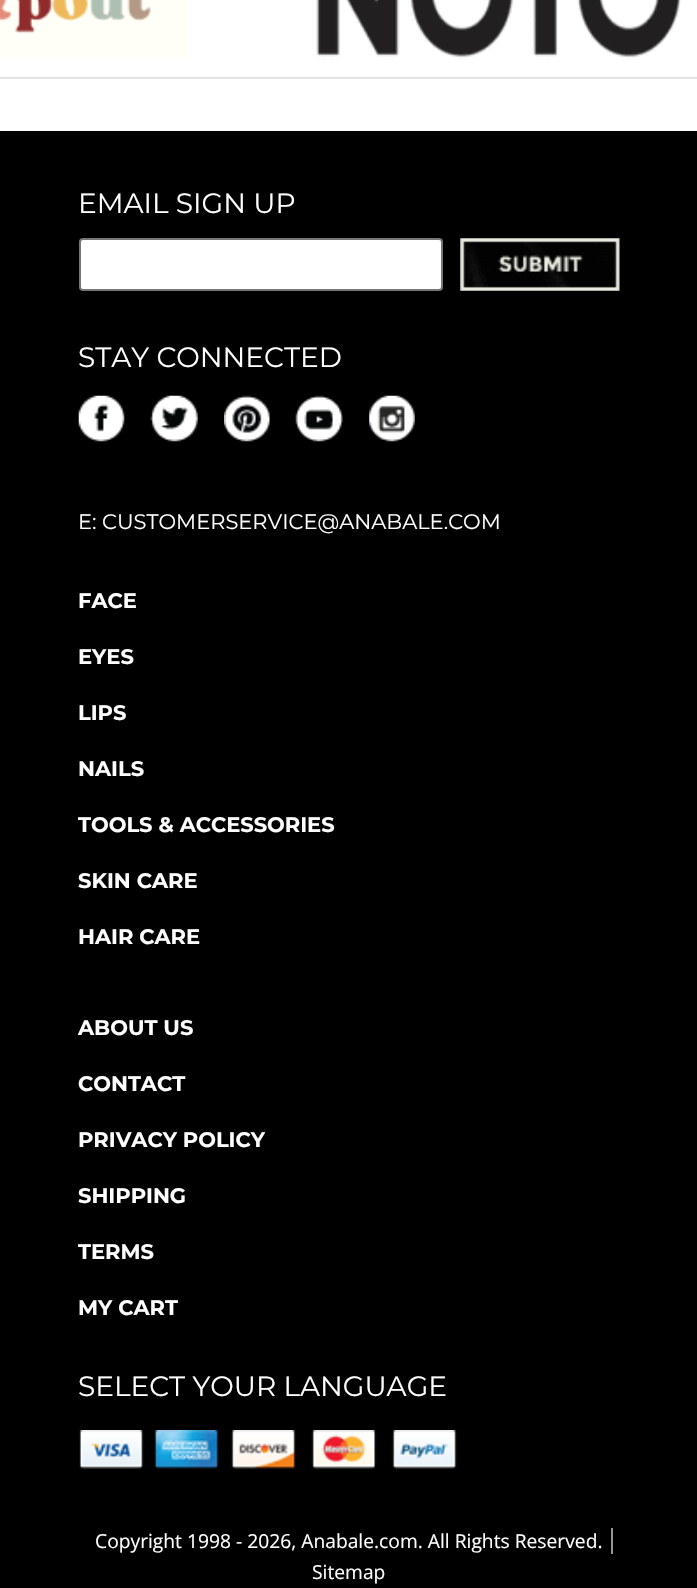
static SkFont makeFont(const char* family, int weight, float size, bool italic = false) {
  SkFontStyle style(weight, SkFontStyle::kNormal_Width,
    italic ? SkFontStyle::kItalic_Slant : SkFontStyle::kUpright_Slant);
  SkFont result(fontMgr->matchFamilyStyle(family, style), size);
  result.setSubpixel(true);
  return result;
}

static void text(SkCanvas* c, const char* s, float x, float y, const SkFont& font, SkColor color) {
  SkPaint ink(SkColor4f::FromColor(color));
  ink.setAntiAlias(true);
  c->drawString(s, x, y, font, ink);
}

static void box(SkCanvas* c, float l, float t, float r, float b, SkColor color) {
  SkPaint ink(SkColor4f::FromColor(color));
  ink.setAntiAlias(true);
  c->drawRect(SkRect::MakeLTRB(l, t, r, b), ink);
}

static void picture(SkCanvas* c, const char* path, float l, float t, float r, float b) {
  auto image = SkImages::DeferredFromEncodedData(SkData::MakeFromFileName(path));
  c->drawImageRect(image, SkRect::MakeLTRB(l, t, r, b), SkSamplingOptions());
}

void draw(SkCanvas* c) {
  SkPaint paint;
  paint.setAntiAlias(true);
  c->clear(0xffffffff);
  box(c, 0, 77, 697, 79, 0xffe3e3e3);
  picture(c, "img_01.png", 0, 0, 187, 58);
  picture(c, "img_02.png", 316, 0, 681, 61);
  box(c, 0, 131, 697, 1588, 0xff000000);
  SkFont face1 = makeFont("Montserrat", 400, 28);
  text(c, "EMAIL SIGN UP", 78, 213, face1, 0xffffffff);
  paint.setColor(0xffffffff);
  c->drawRoundRect(SkRect::MakeLTRB(80, 239, 442, 290), 3, 3, paint);
  paint.setStyle(SkPaint::kStroke_Style);
  paint.setStrokeWidth(2);
  paint.setColor(0xff767676);
  c->drawRoundRect(SkRect::MakeLTRB(80, 239, 442, 290), 3, 3, paint);
  picture(c, "img_03.png", 460, 238, 620, 291);
  text(c, "STAY CONNECTED", 78, 367, face1, 0xffffffff);
  picture(c, "img_04.png", 78, 395, 125, 442);
  picture(c, "img_05.png", 150, 395, 198, 442);
  picture(c, "img_06.png", 224, 395, 270, 442);
  picture(c, "img_07.png", 295, 395, 343, 442);
  picture(c, "img_08.png", 369, 395, 415, 442);
  SkFont face2 = makeFont("Montserrat", 400, 21);
  text(c, "E: CUSTOMERSERVICE@ANABALE.COM", 78, 529, face2, 0xffffffff);
  SkFont face3 = makeFont("Montserrat", 700, 21);
  text(c, "FACE", 78, 608, face3, 0xffffffff);
  text(c, "EYES", 78, 664, face3, 0xffffffff);
  text(c, "LIPS", 78, 720, face3, 0xffffffff);
  text(c, "NAILS", 78, 776, face3, 0xffffffff);
  text(c, "TOOLS & ACCESSORIES", 78, 832, face3, 0xffffffff);
  text(c, "SKIN CARE", 78, 888, face3, 0xffffffff);
  text(c, "HAIR CARE", 78, 944, face3, 0xffffffff);
  text(c, "ABOUT US", 78, 1035, face3, 0xffffffff);
  text(c, "CONTACT", 78, 1091, face3, 0xffffffff);
  text(c, "PRIVACY POLICY", 78, 1147, face3, 0xffffffff);
  text(c, "SHIPPING", 78, 1203, face3, 0xffffffff);
  text(c, "TERMS", 78, 1259, face3, 0xffffffff);
  text(c, "MY CART", 78, 1315, face3, 0xffffffff);
  text(c, "SELECT YOUR LANGUAGE", 78, 1396, face1, 0xffffffff);
  picture(c, "img_09.png", 79, 1430, 457, 1469);
  SkFont face4 = makeFont("Open Sans", 400, 19.25f);
  text(c, "Copyright 1998 - 2026, Anabale.com. All Rights Reserved.", 95, 1548, face4, 0xffffffff);
  box(c, 611, 1528, 613, 1554, 0xff969696);
  text(c, "Sitemap", 312, 1579, face4, 0xffffffff);
}
